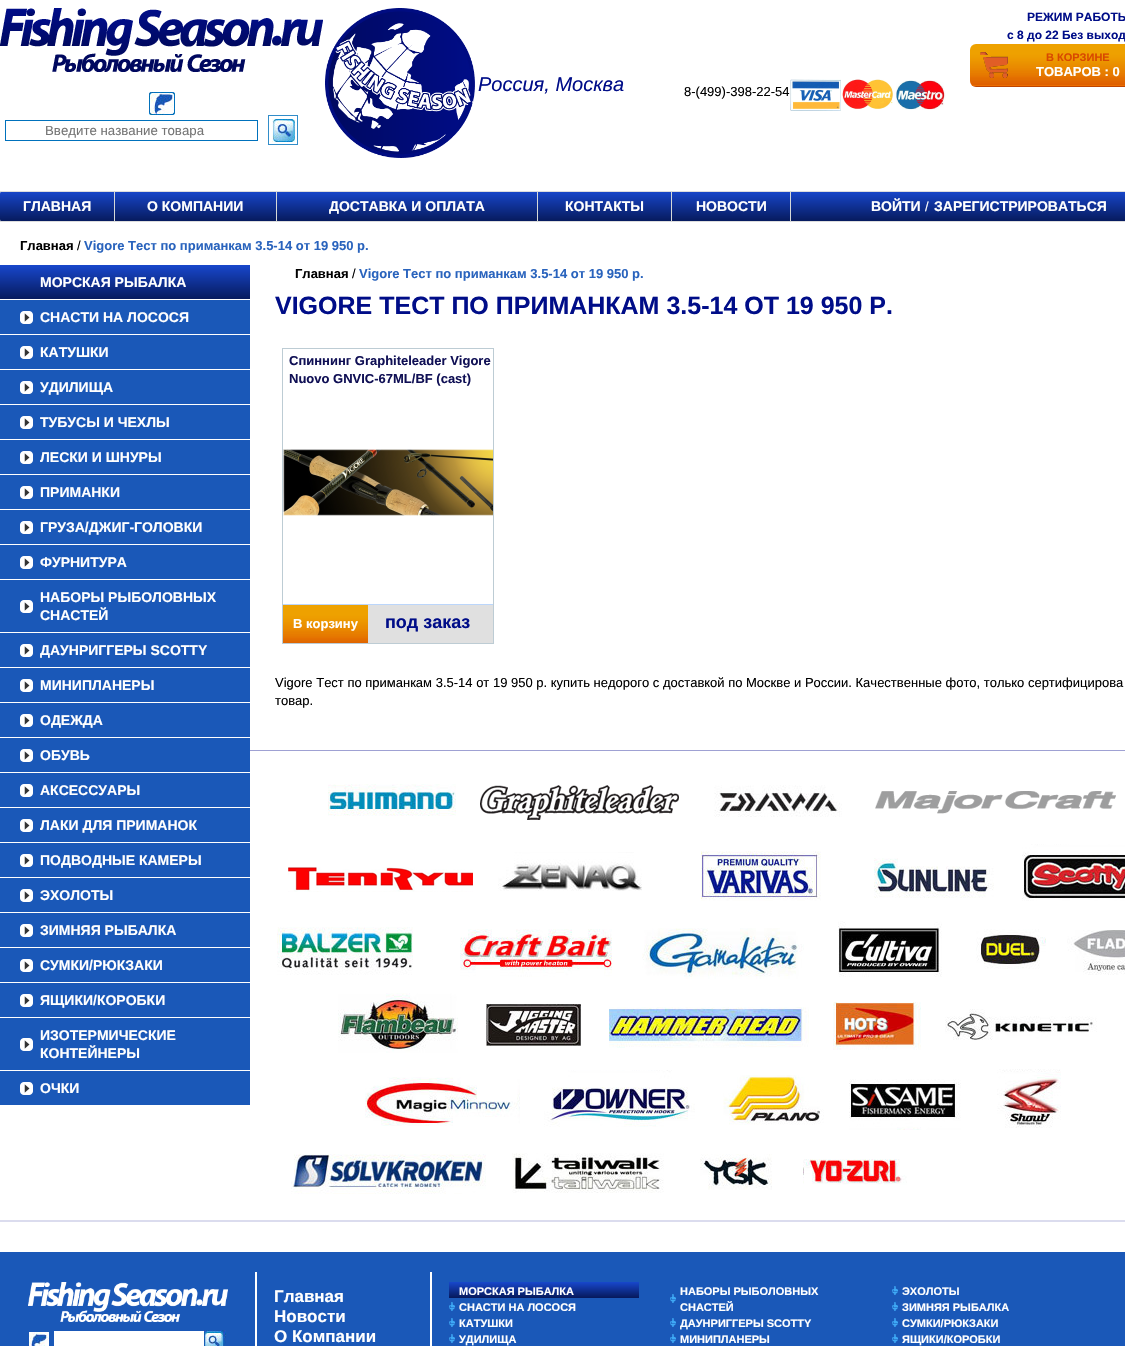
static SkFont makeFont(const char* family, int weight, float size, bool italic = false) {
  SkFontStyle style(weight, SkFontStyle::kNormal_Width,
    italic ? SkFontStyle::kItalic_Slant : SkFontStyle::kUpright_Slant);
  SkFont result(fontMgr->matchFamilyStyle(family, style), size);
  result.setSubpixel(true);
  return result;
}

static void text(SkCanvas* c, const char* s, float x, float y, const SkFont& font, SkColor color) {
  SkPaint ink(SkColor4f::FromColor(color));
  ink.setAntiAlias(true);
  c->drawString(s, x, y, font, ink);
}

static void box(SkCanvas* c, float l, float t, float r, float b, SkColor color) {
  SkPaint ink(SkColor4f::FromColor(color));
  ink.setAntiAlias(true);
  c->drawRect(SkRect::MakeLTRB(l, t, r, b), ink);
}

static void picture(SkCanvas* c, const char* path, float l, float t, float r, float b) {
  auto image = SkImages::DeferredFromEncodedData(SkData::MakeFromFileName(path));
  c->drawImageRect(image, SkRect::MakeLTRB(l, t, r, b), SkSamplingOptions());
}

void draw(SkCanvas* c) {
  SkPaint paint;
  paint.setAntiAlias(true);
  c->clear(0xffffffff);
  picture(c, "img_01.png", 325, 8, 475, 158);
  SkFont face1 = makeFont("Liberation Sans", 700, 12);
  text(c, "РЕЖИМ РАБОТЫ", 1027, 21, face1, 0xff000d88);
  text(c, "c 8 до 22 Без выход", 1007, 39, face1, 0xff000d88);
  picture(c, "img_02.png", 970, 44, 1125, 87);
  picture(c, "img_03.png", 980, 52, 1008, 78);
  SkFont face2 = makeFont("Liberation Sans", 700, 11);
  text(c, "В КОРЗИНЕ", 1046, 61, face2, 0xffd84800);
  SkFont face3 = makeFont("Liberation Sans", 700, 13);
  text(c, "ТОВАРОВ : 0", 1036, 76, face3, 0xffffffff);
  SkFont face4 = makeFont("Liberation Sans", 400, 20, true);
  text(c, "Россия, Москва", 478, 91, face4, 0xff000d88);
  SkFont face5 = makeFont("Liberation Sans", 400, 13);
  text(c, "8-(499)-398-22-54", 684, 96, face5, 0xff000000);
  picture(c, "img_04.png", 790, 79, 841, 111);
  picture(c, "img_05.png", 842, 79, 893, 109);
  picture(c, "img_06.png", 896, 80, 946, 110);
  picture(c, "img_07.png", 0, 8, 323, 72);
  picture(c, "img_08.png", 149, 92, 175, 115);
  paint.setStyle(SkPaint::kStroke_Style);
  paint.setStrokeWidth(1);
  paint.setColor(0xff0071bc);
  c->drawRect(SkRect::MakeLTRB(5.5f, 120.5f, 257.5f, 140.5f), paint);
  SkFont face6 = makeFont("Liberation Sans", 400, 13.25f);
  text(c, "Введите название товара", 45, 135, face6, 0xff757575);
  paint.setColor(0xff328dc9);
  c->drawRect(SkRect::MakeLTRB(268.5f, 115.5f, 297.5f, 144.5f), paint);
  picture(c, "img_09.png", 272, 119, 295, 142);
  paint.setStyle(SkPaint::kFill_Style);
  {
    const SkColor colors[] = {0xff1847cc, 0xff06195a};
    const float stops[] = {0, 1};
    const SkPoint ends[] = {{593, 191}, {593, 222}};
    paint.setShader(SkGradientShader::MakeLinear(ends, colors, stops, 2, SkTileMode::kClamp));
    paint.setAlpha(255);
  }
  c->drawRoundRect(SkRect::MakeLTRB(0, 191, 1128, 222), 3, 3, paint);
  box(c, 0, 191, 1125, 192, 0xffdddddd);
  box(c, 0, 221, 1125, 222, 0xffdddddd);
  SkFont face7 = makeFont("Liberation Sans", 700, 14);
  text(c, "ГЛАВНАЯ", 23, 211, face7, 0xffffffff);
  box(c, 114, 191, 115, 222, 0xffd6d9d8);
  text(c, "О КОМПАНИИ", 147, 211, face7, 0xffffffff);
  box(c, 276, 191, 277, 222, 0xffd6d9d8);
  text(c, "ДОСТАВКА И ОПЛАТА", 329, 211, face7, 0xffffffff);
  box(c, 537, 191, 538, 222, 0xffd6d9d8);
  text(c, "КОНТАКТЫ", 565, 211, face7, 0xffffffff);
  box(c, 671, 191, 672, 222, 0xffd6d9d8);
  text(c, "НОВОСТИ", 696, 211, face7, 0xffffffff);
  box(c, 790, 191, 791, 222, 0xffd6d9d8);
  text(c, "ВОЙТИ", 871, 211, face7, 0xffffffff);
  text(c, "/", 925, 211, face5, 0xffffffff);
  text(c, "ЗАРЕГИСТРИРОВАТЬСЯ", 934, 211, face7, 0xffffffff);
  text(c, "Главная", 20, 250, face3, 0xff000000);
  text(c, "/", 77, 250, face5, 0xff000000);
  text(c, "Vigore Тест по приманкам 3.5-14 от 19 950 р.", 84, 250, face3, 0xff2963bd);
  {
    const SkColor colors[] = {0xff1847cc, 0xff06195a};
    const float stops[] = {0, 1};
    const SkPoint ends[] = {{125, 265}, {125, 300}};
    paint.setShader(SkGradientShader::MakeLinear(ends, colors, stops, 2, SkTileMode::kClamp));
    paint.setAlpha(255);
  }
  c->drawRect(SkRect::MakeLTRB(0, 265, 250, 299), paint);
  text(c, "МОРСКАЯ РЫБАЛКА", 40, 287, face7, 0xffffffff);
  box(c, 0, 300, 250, 334, 0xff1a58b8);
  picture(c, "img_10.png", 20, 311, 33, 324);
  text(c, "СНАСТИ НА ЛОСОСЯ", 40, 322, face7, 0xffffffff);
  box(c, 0, 335, 250, 369, 0xff1a58b8);
  picture(c, "img_10.png", 20, 346, 33, 359);
  text(c, "КАТУШКИ", 40, 357, face7, 0xffffffff);
  box(c, 0, 370, 250, 404, 0xff1a58b8);
  picture(c, "img_10.png", 20, 381, 33, 394);
  text(c, "УДИЛИЩА", 40, 392, face7, 0xffffffff);
  box(c, 0, 405, 250, 439, 0xff1a58b8);
  picture(c, "img_10.png", 20, 416, 33, 429);
  text(c, "ТУБУСЫ И ЧЕХЛЫ", 40, 427, face7, 0xffffffff);
  box(c, 0, 440, 250, 474, 0xff1a58b8);
  picture(c, "img_10.png", 20, 451, 33, 464);
  text(c, "ЛЕСКИ И ШНУРЫ", 40, 462, face7, 0xffffffff);
  box(c, 0, 475, 250, 509, 0xff1a58b8);
  picture(c, "img_10.png", 20, 486, 33, 499);
  text(c, "ПРИМАНКИ", 40, 497, face7, 0xffffffff);
  box(c, 0, 510, 250, 544, 0xff1a58b8);
  picture(c, "img_10.png", 20, 521, 33, 534);
  text(c, "ГРУЗА/ДЖИГ-ГОЛОВКИ", 40, 532, face7, 0xffffffff);
  box(c, 0, 545, 250, 579, 0xff1a58b8);
  picture(c, "img_10.png", 20, 556, 33, 569);
  text(c, "ФУРНИТУРА", 40, 567, face7, 0xffffffff);
  box(c, 0, 580, 250, 632, 0xff1a58b8);
  picture(c, "img_10.png", 20, 600, 33, 613);
  text(c, "НАБОРЫ РЫБОЛОВНЫХ", 40, 602, face7, 0xffffffff);
  text(c, "СНАСТЕЙ", 40, 620, face7, 0xffffffff);
  box(c, 0, 633, 250, 667, 0xff1a58b8);
  picture(c, "img_10.png", 20, 644, 33, 657);
  text(c, "ДАУНРИГГЕРЫ SCOTTY", 40, 655, face7, 0xffffffff);
  box(c, 0, 668, 250, 702, 0xff1a58b8);
  picture(c, "img_10.png", 20, 679, 33, 692);
  text(c, "МИНИПЛАНЕРЫ", 40, 690, face7, 0xffffffff);
  box(c, 0, 703, 250, 737, 0xff1a58b8);
  picture(c, "img_10.png", 20, 714, 33, 727);
  text(c, "ОДЕЖДА", 40, 725, face7, 0xffffffff);
  box(c, 0, 738, 250, 772, 0xff1a58b8);
  picture(c, "img_10.png", 20, 749, 33, 762);
  text(c, "ОБУВЬ", 40, 760, face7, 0xffffffff);
  box(c, 0, 773, 250, 807, 0xff1a58b8);
  picture(c, "img_10.png", 20, 784, 33, 797);
  text(c, "АКСЕССУАРЫ", 40, 795, face7, 0xffffffff);
  box(c, 0, 808, 250, 842, 0xff1a58b8);
  picture(c, "img_10.png", 20, 819, 33, 832);
  text(c, "ЛАКИ ДЛЯ ПРИМАНОК", 40, 830, face7, 0xffffffff);
  box(c, 0, 843, 250, 877, 0xff1a58b8);
  picture(c, "img_10.png", 20, 854, 33, 867);
  text(c, "ПОДВОДНЫЕ КАМЕРЫ", 40, 865, face7, 0xffffffff);
  box(c, 0, 878, 250, 912, 0xff1a58b8);
  picture(c, "img_10.png", 20, 889, 33, 902);
  text(c, "ЭХОЛОТЫ", 40, 900, face7, 0xffffffff);
  box(c, 0, 913, 250, 947, 0xff1a58b8);
  picture(c, "img_10.png", 20, 924, 33, 937);
  text(c, "ЗИМНЯЯ РЫБАЛКА", 40, 935, face7, 0xffffffff);
  box(c, 0, 948, 250, 982, 0xff1a58b8);
  picture(c, "img_10.png", 20, 959, 33, 972);
  text(c, "СУМКИ/РЮКЗАКИ", 40, 970, face7, 0xffffffff);
  box(c, 0, 983, 250, 1017, 0xff1a58b8);
  picture(c, "img_10.png", 20, 994, 33, 1007);
  text(c, "ЯЩИКИ/КОРОБКИ", 40, 1005, face7, 0xffffffff);
  box(c, 0, 1018, 250, 1070, 0xff1a58b8);
  picture(c, "img_10.png", 20, 1038, 33, 1051);
  text(c, "ИЗОТЕРМИЧЕСКИЕ", 40, 1040, face7, 0xffffffff);
  text(c, "КОНТЕЙНЕРЫ", 40, 1058, face7, 0xffffffff);
  box(c, 0, 1071, 250, 1105, 0xff1a58b8);
  picture(c, "img_10.png", 20, 1082, 33, 1095);
  text(c, "ОЧКИ", 40, 1093, face7, 0xffffffff);
  text(c, "Главная", 295, 278, face3, 0xff000000);
  text(c, "/", 352, 278, face5, 0xff000000);
  text(c, "Vigore Тест по приманкам 3.5-14 от 19 950 р.", 359, 278, face3, 0xff2963bd);
  SkFont face8 = makeFont("Liberation Sans", 700, 25);
  text(c, "VIGORE ТЕСТ ПО ПРИМАНКАМ 3.5-14 ОТ 19 950 Р.", 275, 314, face8, 0xff000d88);
  paint.setStyle(SkPaint::kStroke_Style);
  paint.setShader(nullptr);
  paint.setColor(0xffbdccd4);
  c->drawRect(SkRect::MakeLTRB(282.5f, 348.5f, 493.5f, 643.5f), paint);
  text(c, "Спиннинг Graphiteleader Vigore", 289, 365, face3, 0xff101055);
  text(c, "Nuovo GNVIC-67ML/BF (cast)", 289, 383, face3, 0xff101055);
  picture(c, "img_11.png", 283, 449, 493, 516);
  box(c, 368, 605, 493, 643, 0xffe0e0e0);
  box(c, 283, 604, 493, 605, 0xffbbd6fb);
  picture(c, "img_12.png", 283, 605, 368, 643);
  text(c, "В корзину", 293, 628, face3, 0xffffffff);
  SkFont face9 = makeFont("Liberation Sans", 700, 18);
  text(c, "под заказ", 385, 628, face9, 0xff000d88);
  text(c, "Vigore Тест по приманкам 3.5-14 от 19 950 р. купить недорого с доставкой по Москве и России. Качественные фото, только сертифицирова", 275, 687, face5, 0xff000000);
  text(c, "товар.", 275, 705, face5, 0xff000000);
  box(c, 250, 750, 1125, 751, 0xff9fa1d3);
  box(c, 0, 1220, 1125, 1222, 0xffdbdcee);
  picture(c, "img_13.png", 328, 784, 456, 816);
  picture(c, "img_14.png", 480, 785, 679, 820);
  picture(c, "img_15.png", 714, 785, 842, 817);
  picture(c, "img_16.png", 875, 791, 1116, 814);
  picture(c, "img_17.png", 288, 867, 473, 892);
  picture(c, "img_18.png", 498, 852, 642, 891);
  picture(c, "img_19.png", 701, 851, 821, 901);
  picture(c, "img_20.png", 874, 858, 994, 898);
  picture(c, "img_21.png", 1022, 844, 1125, 901);
  picture(c, "img_22.png", 277, 927, 413, 975);
  picture(c, "img_23.png", 460, 929, 612, 977);
  picture(c, "img_24.png", 642, 928, 804, 979);
  picture(c, "img_25.png", 838, 921, 942, 977);
  picture(c, "img_26.png", 976, 929, 1046, 969);
  picture(c, "img_27.png", 1067, 930, 1125, 975);
  picture(c, "img_28.png", 338, 993, 458, 1053);
  picture(c, "img_29.png", 486, 1004, 581, 1046);
  picture(c, "img_30.png", 609, 1007, 809, 1048);
  picture(c, "img_31.png", 833, 1002, 921, 1050);
  picture(c, "img_32.png", 945, 1009, 1097, 1040);
  picture(c, "img_33.png", 365, 1077, 520, 1126);
  picture(c, "img_34.png", 544, 1070, 695, 1127);
  picture(c, "img_35.png", 723, 1075, 824, 1125);
  picture(c, "img_36.png", 849, 1079, 961, 1130);
  picture(c, "img_37.png", 997, 1069, 1061, 1128);
  picture(c, "img_38.png", 291, 1154, 486, 1194);
  picture(c, "img_39.png", 512, 1153, 664, 1193);
  picture(c, "img_40.png", 700, 1154, 772, 1190);
  picture(c, "img_41.png", 803, 1159, 907, 1185);
  box(c, 0, 1252, 1125, 1346, 0xff1a58b8);
  picture(c, "img_42.png", 28, 1282, 228, 1322);
  picture(c, "img_43.png", 29, 1332, 49, 1346);
  box(c, 54, 1331, 204, 1346, 0xffffffff);
  picture(c, "img_44.png", 204, 1330, 226, 1346);
  box(c, 255, 1272, 257, 1346, 0xffffffff);
  SkFont face10 = makeFont("Liberation Sans", 700, 17);
  text(c, "Главная", 274, 1302, face10, 0xffffffff);
  text(c, "Новости", 274, 1322, face10, 0xffffffff);
  text(c, "О Компании", 274, 1342, face10, 0xffffffff);
  box(c, 430, 1272, 432, 1346, 0xffffffff);
  paint.setStyle(SkPaint::kFill_Style);
  {
    const SkColor colors[] = {0xff1847cc, 0xff06195a};
    const float stops[] = {0, 1};
    const SkPoint ends[] = {{544, 1282}, {544, 1298}};
    paint.setShader(SkGradientShader::MakeLinear(ends, colors, stops, 2, SkTileMode::kClamp));
    paint.setAlpha(255);
  }
  c->drawRect(SkRect::MakeLTRB(449, 1282, 639, 1298), paint);
  text(c, "МОРСКАЯ РЫБАЛКА", 459, 1295, face2, 0xffffffff);
  picture(c, "img_45.png", 670, 1294, 676, 1303);
  text(c, "НАБОРЫ РЫБОЛОВНЫХ", 680, 1295, face2, 0xffffffff);
  text(c, "СНАСТЕЙ", 680, 1311, face2, 0xffffffff);
  picture(c, "img_45.png", 892, 1286, 898, 1295);
  text(c, "ЭХОЛОТЫ", 902, 1295, face2, 0xffffffff);
  picture(c, "img_45.png", 449, 1302, 455, 1311);
  text(c, "СНАСТИ НА ЛОСОСЯ", 459, 1311, face2, 0xffffffff);
  picture(c, "img_45.png", 892, 1302, 898, 1311);
  text(c, "ЗИМНЯЯ РЫБАЛКА", 902, 1311, face2, 0xffffffff);
  picture(c, "img_45.png", 449, 1318, 455, 1327);
  text(c, "КАТУШКИ", 459, 1327, face2, 0xffffffff);
  picture(c, "img_45.png", 670, 1318, 676, 1327);
  text(c, "ДАУНРИГГЕРЫ SCOTTY", 680, 1327, face2, 0xffffffff);
  picture(c, "img_45.png", 892, 1318, 898, 1327);
  text(c, "СУМКИ/РЮКЗАКИ", 902, 1327, face2, 0xffffffff);
  picture(c, "img_45.png", 449, 1334, 455, 1343);
  text(c, "УДИЛИЩА", 459, 1343, face2, 0xffffffff);
  picture(c, "img_45.png", 670, 1334, 676, 1343);
  text(c, "МИНИПЛАНЕРЫ", 680, 1343, face2, 0xffffffff);
  picture(c, "img_45.png", 892, 1334, 898, 1343);
  text(c, "ЯЩИКИ/КОРОБКИ", 902, 1343, face2, 0xffffffff);
}
